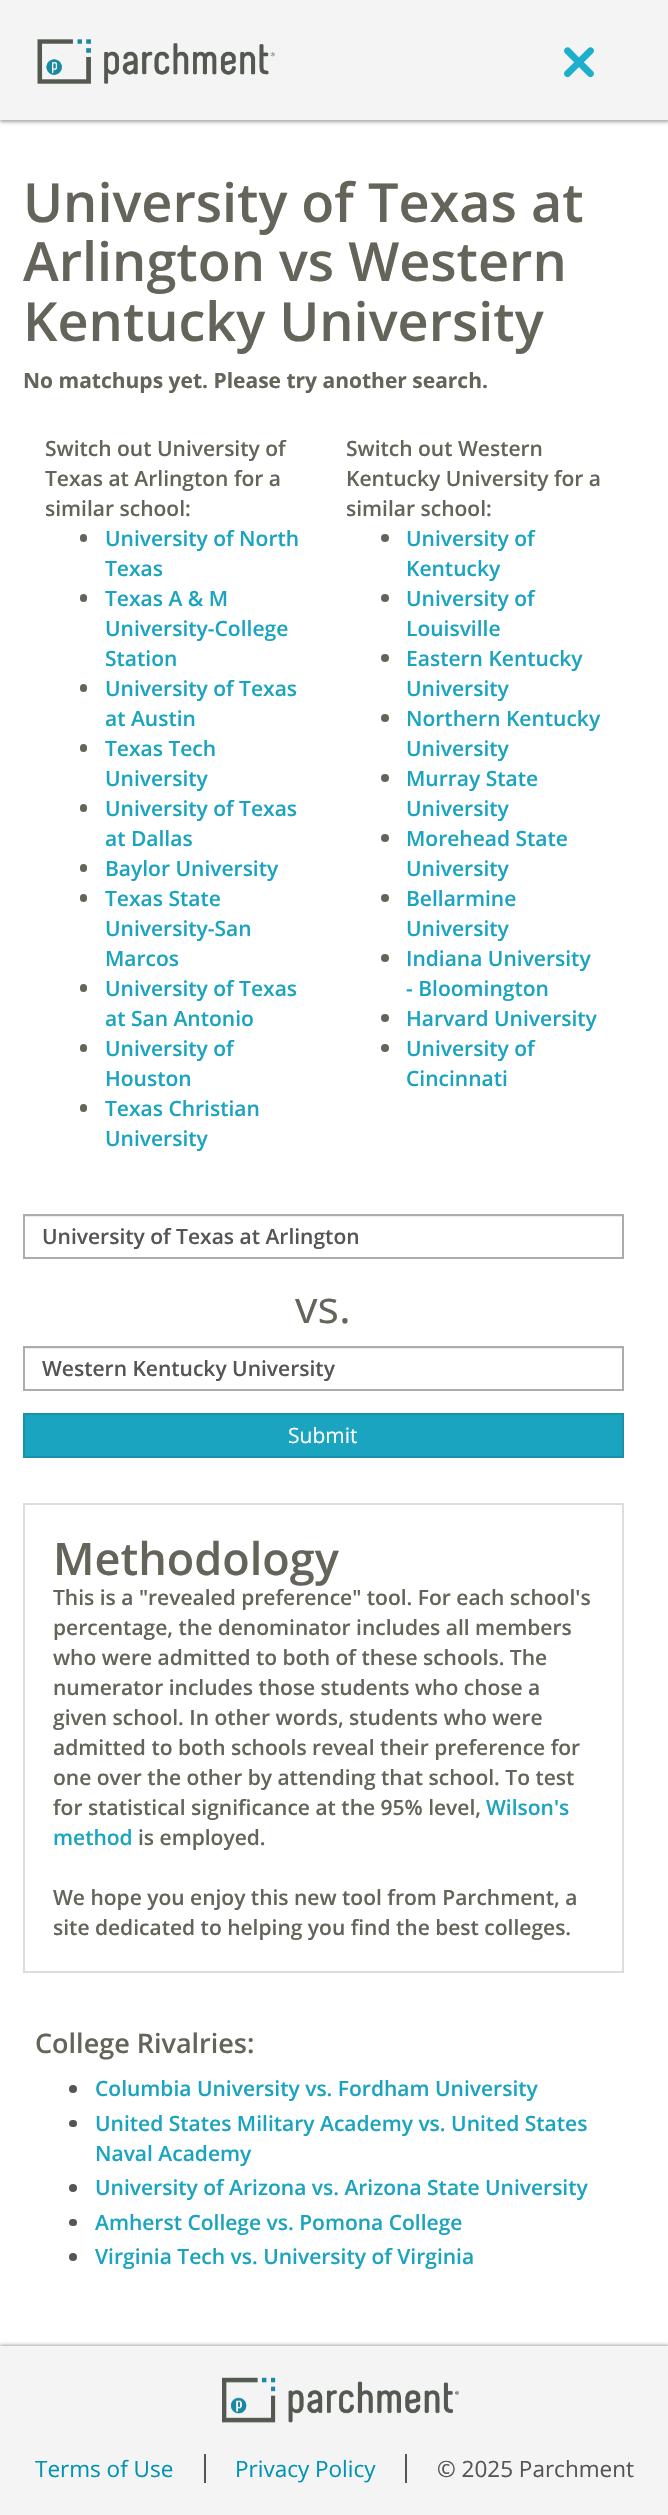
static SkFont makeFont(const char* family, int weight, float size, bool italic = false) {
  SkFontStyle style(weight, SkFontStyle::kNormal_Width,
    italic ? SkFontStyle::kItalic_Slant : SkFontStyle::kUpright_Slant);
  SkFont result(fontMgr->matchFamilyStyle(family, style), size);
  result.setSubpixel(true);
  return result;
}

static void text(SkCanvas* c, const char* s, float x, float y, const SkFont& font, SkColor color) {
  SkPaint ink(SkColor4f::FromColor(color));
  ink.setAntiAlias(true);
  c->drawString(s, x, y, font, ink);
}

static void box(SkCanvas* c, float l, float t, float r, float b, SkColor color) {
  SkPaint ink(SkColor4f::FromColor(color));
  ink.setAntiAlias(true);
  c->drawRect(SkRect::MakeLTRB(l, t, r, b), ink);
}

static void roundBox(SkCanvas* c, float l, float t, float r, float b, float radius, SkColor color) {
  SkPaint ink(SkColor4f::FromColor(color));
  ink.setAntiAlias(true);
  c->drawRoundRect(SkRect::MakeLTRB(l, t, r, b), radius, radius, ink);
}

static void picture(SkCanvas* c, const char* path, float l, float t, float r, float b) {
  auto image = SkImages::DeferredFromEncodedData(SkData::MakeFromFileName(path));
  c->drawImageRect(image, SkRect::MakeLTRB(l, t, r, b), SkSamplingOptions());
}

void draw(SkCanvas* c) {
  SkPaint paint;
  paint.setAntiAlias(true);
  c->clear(0xffffffff);
  paint.setColor(0x3d000000);
  paint.setMaskFilter(SkMaskFilter::MakeBlur(kNormal_SkBlurStyle, 1.5f));
  c->drawRect(SkRect::MakeLTRB(0, 2, 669, 122), paint);
  paint.setMaskFilter(nullptr);
  paint.setColor(0x1f000000);
  paint.setMaskFilter(SkMaskFilter::MakeBlur(kNormal_SkBlurStyle, 2));
  c->drawRect(SkRect::MakeLTRB(0, 2, 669, 122), paint);
  paint.setMaskFilter(nullptr);
  box(c, 0, 0, 668, 120, 0xfff4f4f4);
  picture(c, "img_01.png", 37, 39, 275, 84);
  picture(c, "img_02.png", 564, 47, 594, 78);
  SkFont face1 = makeFont("Open Sans", 600, 54);
  text(c, "University of Texas at", 23, 222, face1, 0xff65645a);
  text(c, "Arlington vs Western", 23, 281, face1, 0xff65645a);
  text(c, "Kentucky University", 23, 341, face1, 0xff65645a);
  SkFont face2 = makeFont("Open Sans", 700, 21);
  text(c, "No matchups yet. Please try another search.", 23, 388, face2, 0xff65645a);
  SkFont face3 = makeFont("Open Sans", 600, 21);
  text(c, "Switch out University of", 45, 456, face3, 0xff65645a);
  text(c, "Texas at Arlington for a", 45, 486, face3, 0xff65645a);
  text(c, "similar school:", 45, 516, face3, 0xff65645a);
  roundBox(c, 80, 534, 87, 542, 3.5f, 0xff65645a);
  text(c, "University of North", 105, 546, face3, 0xff1ba4bf);
  text(c, "Texas", 105, 576, face3, 0xff1ba4bf);
  roundBox(c, 80, 594, 87, 602, 3.5f, 0xff65645a);
  text(c, "Texas A & M", 105, 606, face3, 0xff1ba4bf);
  text(c, "University-College", 105, 636, face3, 0xff1ba4bf);
  text(c, "Station", 105, 666, face3, 0xff1ba4bf);
  roundBox(c, 80, 684, 87, 692, 3.5f, 0xff65645a);
  text(c, "University of Texas", 105, 696, face3, 0xff1ba4bf);
  text(c, "at Austin", 105, 726, face3, 0xff1ba4bf);
  roundBox(c, 80, 744, 87, 752, 3.5f, 0xff65645a);
  text(c, "Texas Tech", 105, 756, face3, 0xff1ba4bf);
  text(c, "University", 105, 786, face3, 0xff1ba4bf);
  roundBox(c, 80, 804, 87, 812, 3.5f, 0xff65645a);
  text(c, "University of Texas", 105, 816, face3, 0xff1ba4bf);
  text(c, "at Dallas", 105, 846, face3, 0xff1ba4bf);
  roundBox(c, 80, 864, 87, 872, 3.5f, 0xff65645a);
  text(c, "Baylor University", 105, 876, face3, 0xff1ba4bf);
  roundBox(c, 80, 894, 87, 902, 3.5f, 0xff65645a);
  text(c, "Texas State", 105, 906, face3, 0xff1ba4bf);
  text(c, "University-San", 105, 936, face3, 0xff1ba4bf);
  text(c, "Marcos", 105, 966, face3, 0xff1ba4bf);
  roundBox(c, 80, 984, 87, 992, 3.5f, 0xff65645a);
  text(c, "University of Texas", 105, 996, face3, 0xff1ba4bf);
  text(c, "at San Antonio", 105, 1026, face3, 0xff1ba4bf);
  roundBox(c, 80, 1044, 87, 1052, 3.5f, 0xff65645a);
  text(c, "University of", 105, 1056, face3, 0xff1ba4bf);
  text(c, "Houston", 105, 1086, face3, 0xff1ba4bf);
  roundBox(c, 80, 1104, 87, 1112, 3.5f, 0xff65645a);
  text(c, "Texas Christian", 105, 1116, face3, 0xff1ba4bf);
  text(c, "University", 105, 1146, face3, 0xff1ba4bf);
  text(c, "Switch out Western", 346, 456, face3, 0xff65645a);
  text(c, "Kentucky University for a", 346, 486, face3, 0xff65645a);
  text(c, "similar school:", 346, 516, face3, 0xff65645a);
  paint.setColor(0xff65645a);
  c->drawCircle(385, 538, 4, paint);
  text(c, "University of", 406, 546, face3, 0xff1ba4bf);
  text(c, "Kentucky", 406, 576, face3, 0xff1ba4bf);
  c->drawCircle(385, 598, 4, paint);
  text(c, "University of", 406, 606, face3, 0xff1ba4bf);
  text(c, "Louisville", 406, 636, face3, 0xff1ba4bf);
  c->drawCircle(385, 658, 4, paint);
  text(c, "Eastern Kentucky", 406, 666, face3, 0xff1ba4bf);
  text(c, "University", 406, 696, face3, 0xff1ba4bf);
  c->drawCircle(385, 718, 4, paint);
  text(c, "Northern Kentucky", 406, 726, face3, 0xff1ba4bf);
  text(c, "University", 406, 756, face3, 0xff1ba4bf);
  c->drawCircle(385, 778, 4, paint);
  text(c, "Murray State", 406, 786, face3, 0xff1ba4bf);
  text(c, "University", 406, 816, face3, 0xff1ba4bf);
  c->drawCircle(385, 838, 4, paint);
  text(c, "Morehead State", 406, 846, face3, 0xff1ba4bf);
  text(c, "University", 406, 876, face3, 0xff1ba4bf);
  c->drawCircle(385, 898, 4, paint);
  text(c, "Bellarmine", 406, 906, face3, 0xff1ba4bf);
  text(c, "University", 406, 936, face3, 0xff1ba4bf);
  c->drawCircle(385, 958, 4, paint);
  text(c, "Indiana University", 406, 966, face3, 0xff1ba4bf);
  text(c, "- Bloomington", 406, 996, face3, 0xff1ba4bf);
  c->drawCircle(385, 1018, 4, paint);
  text(c, "Harvard University", 406, 1026, face3, 0xff1ba4bf);
  c->drawCircle(385, 1048, 4, paint);
  text(c, "University of", 406, 1056, face3, 0xff1ba4bf);
  text(c, "Cincinnati", 406, 1086, face3, 0xff1ba4bf);
  box(c, 24, 1216, 623, 1217, 0xffececec);
  paint.setStyle(SkPaint::kStroke_Style);
  paint.setStrokeWidth(2);
  paint.setColor(0xffacacac);
  c->drawRect(SkRect::MakeLTRB(24, 1215, 623, 1258), paint);
  text(c, "University of Texas at Arlington", 42, 1244, face3, 0xff555555);
  SkFont face4 = makeFont("Open Sans", 400, 45);
  text(c, "vs.", 295, 1323, face4, 0xff65645a);
  box(c, 24, 1348, 623, 1349, 0xffececec);
  c->drawRect(SkRect::MakeLTRB(24, 1347, 623, 1390), paint);
  text(c, "Western Kentucky University", 42, 1376, face3, 0xff555555);
  paint.setStyle(SkPaint::kFill_Style);
  paint.setColor(0xff1ba4bf);
  c->drawRect(SkRect::MakeLTRB(24, 1414, 623, 1457), paint);
  paint.setStyle(SkPaint::kStroke_Style);
  paint.setColor(0xff1891a9);
  c->drawRect(SkRect::MakeLTRB(24, 1414, 623, 1457), paint);
  SkFont face5 = makeFont("Open Sans", 400, 21);
  text(c, "Submit", 288, 1443, face5, 0xffffffff);
  paint.setColor(0xffdddddd);
  c->drawRect(SkRect::MakeLTRB(24, 1504, 623, 1972), paint);
  SkFont face6 = makeFont("Open Sans", 600, 45);
  text(c, "Methodology", 53, 1575, face6, 0xff65645a);
  text(c, "This is a \"revealed preference\" tool. For each school's", 53, 1605, face3, 0xff65645a);
  text(c, "percentage, the denominator includes all members", 53, 1635, face3, 0xff65645a);
  text(c, "who were admitted to both of these schools. The", 53, 1665, face3, 0xff65645a);
  text(c, "numerator includes those students who chose a", 53, 1695, face3, 0xff65645a);
  text(c, "given school. In other words, students who were", 53, 1725, face3, 0xff65645a);
  text(c, "admitted to both schools reveal their preference for", 53, 1755, face3, 0xff65645a);
  text(c, "one over the other by attending that school. To test", 53, 1785, face3, 0xff65645a);
  text(c, "for statistical significance at the 95% level,", 53, 1815, face3, 0xff65645a);
  text(c, "Wilson's", 486, 1815, face3, 0xff1ba4bf);
  text(c, "method", 53, 1845, face3, 0xff1ba4bf);
  text(c, "is employed.", 138, 1845, face3, 0xff65645a);
  text(c, "We hope you enjoy this new tool from Parchment, a", 53, 1905, face3, 0xff65645a);
  text(c, "site dedicated to helping you find the best colleges.", 53, 1935, face3, 0xff65645a);
  SkFont face7 = makeFont("Open Sans", 600, 27);
  text(c, "College Rivalries:", 35, 2053, face7, 0xff65645a);
  paint.setStyle(SkPaint::kFill_Style);
  paint.setColor(0xff555555);
  c->drawCircle(73, 2089, 4, paint);
  text(c, "Columbia University vs. Fordham University", 95, 2096, face3, 0xff1ba4bf);
  roundBox(c, 69, 2120, 77, 2127, 3.5f, 0xff555555);
  text(c, "United States Military Academy vs. United States", 95, 2131, face3, 0xff1ba4bf);
  text(c, "Naval Academy", 95, 2161, face3, 0xff1ba4bf);
  c->drawCircle(73, 2188, 4, paint);
  text(c, "University of Arizona vs. Arizona State University", 95, 2195, face3, 0xff1ba4bf);
  roundBox(c, 69, 2219, 77, 2226, 3.5f, 0xff555555);
  text(c, "Amherst College vs. Pomona College", 95, 2230, face3, 0xff1ba4bf);
  c->drawCircle(73, 2257, 4, paint);
  text(c, "Virginia Tech vs. University of Virginia", 95, 2264, face3, 0xff1ba4bf);
  paint.setColor(0x3d000000);
  paint.setMaskFilter(SkMaskFilter::MakeBlur(kNormal_SkBlurStyle, 1.5f));
  c->drawRect(SkRect::MakeLTRB(0, 2345, 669, 2514), paint);
  paint.setMaskFilter(nullptr);
  paint.setColor(0x1f000000);
  paint.setMaskFilter(SkMaskFilter::MakeBlur(kNormal_SkBlurStyle, 2));
  c->drawRect(SkRect::MakeLTRB(0, 2345, 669, 2514), paint);
  paint.setMaskFilter(nullptr);
  box(c, 0, 2346, 668, 2515, 0xfff4f4f4);
  picture(c, "img_03.png", 222, 2377, 459, 2423);
  SkFont face8 = makeFont("Open Sans", 400, 22.5f);
  text(c, "Terms of Use", 35, 2477, face8, 0xff0093b2);
  box(c, 204, 2454, 206, 2483, 0xff555555);
  text(c, "Privacy Policy", 235, 2477, face8, 0xff0093b2);
  box(c, 405, 2454, 407, 2483, 0xff555555);
  text(c, "© 2025 Parchment", 437, 2477, face8, 0xff555555);
}
